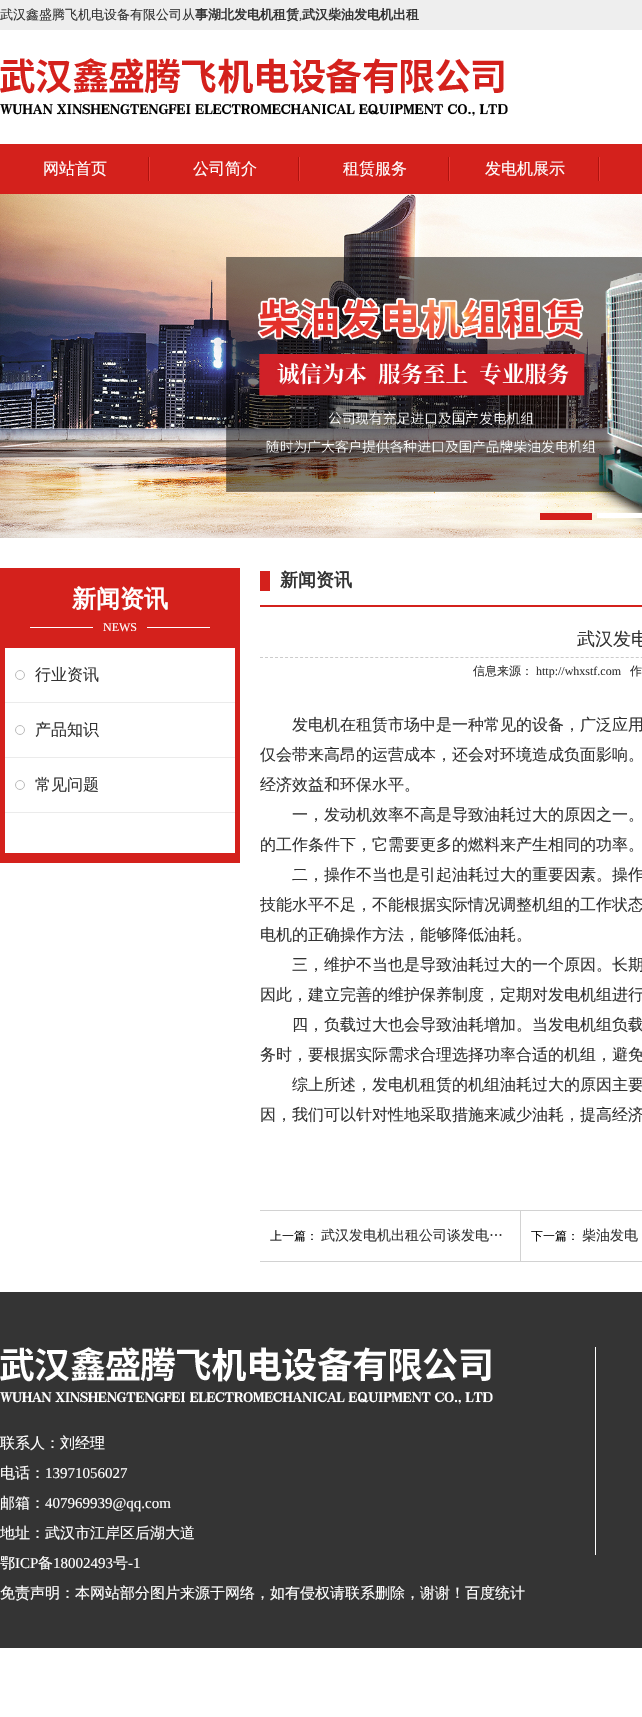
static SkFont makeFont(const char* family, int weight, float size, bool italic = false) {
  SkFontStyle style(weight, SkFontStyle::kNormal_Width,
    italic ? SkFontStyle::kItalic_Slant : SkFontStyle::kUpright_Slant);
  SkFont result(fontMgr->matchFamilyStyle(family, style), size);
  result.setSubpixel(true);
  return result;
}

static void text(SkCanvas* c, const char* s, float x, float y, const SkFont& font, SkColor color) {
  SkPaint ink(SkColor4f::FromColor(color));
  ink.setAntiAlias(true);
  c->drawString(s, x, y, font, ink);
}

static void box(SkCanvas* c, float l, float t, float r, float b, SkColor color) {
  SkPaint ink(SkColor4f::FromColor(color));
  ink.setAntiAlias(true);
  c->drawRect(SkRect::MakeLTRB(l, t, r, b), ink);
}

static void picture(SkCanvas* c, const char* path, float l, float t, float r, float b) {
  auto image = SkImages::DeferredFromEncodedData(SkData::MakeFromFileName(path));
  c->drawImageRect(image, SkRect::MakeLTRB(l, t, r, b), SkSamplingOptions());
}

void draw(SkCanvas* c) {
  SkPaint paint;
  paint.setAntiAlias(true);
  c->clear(0xffffffff);
  box(c, 0, 0, 642, 30, 0xffeeeeee);
  SkFont face1 = makeFont("WenQuanYi Zen Hei", 500, 13);
  text(c, "武汉鑫盛腾飞机电设备有限公司从", 0, 19, face1, 0xff333333);
  SkFont face2 = makeFont("WenQuanYi Zen Hei", 700, 13);
  text(c, "事湖北发电机租赁", 195, 19, face2, 0xff333333);
  SkFont face3 = makeFont("Liberation Serif", 400, 13);
  text(c, ",", 299, 19, face3, 0xff333333);
  text(c, "武汉柴油发电机出租", 302, 19, face2, 0xff333333);
  picture(c, "img_01.png", 0, 58, 508, 116);
  box(c, 0, 144, 642, 194, 0xffd4211c);
  SkFont face4 = makeFont("WenQuanYi Zen Hei", 500, 16);
  text(c, "网站首页", 43, 174, face4, 0xffffffff);
  picture(c, "img_02.png", 148, 157, 150, 181);
  text(c, "公司简介", 193, 174, face4, 0xffffffff);
  picture(c, "img_02.png", 298, 157, 300, 181);
  text(c, "租赁服务", 343, 174, face4, 0xffffffff);
  picture(c, "img_02.png", 448, 157, 450, 181);
  text(c, "发电机展示", 485, 174, face4, 0xffffffff);
  picture(c, "img_02.png", 598, 157, 600, 181);
  picture(c, "img_03.png", 0, 194, 642, 538);
  box(c, 540, 513, 592, 520, 0xffd4211c);
  box(c, 597, 513, 642, 518, 0xffffffff);
  box(c, 0, 568, 240, 863, 0xffd4211c);
  SkFont face5 = makeFont("WenQuanYi Zen Hei", 700, 24);
  text(c, "新闻资讯", 72, 607, face5, 0xffffffff);
  box(c, 30, 627, 210, 628, 0xffffffff);
  box(c, 93, 627, 147, 628, 0xffd4211c);
  SkFont face6 = makeFont("Liberation Serif", 400, 12);
  text(c, "NEWS", 103, 631, face6, 0xffffffff);
  box(c, 5, 648, 235, 853, 0xffffffff);
  box(c, 5, 702, 235, 703, 0xffebebeb);
  paint.setStyle(SkPaint::kStroke_Style);
  paint.setStrokeWidth(1);
  paint.setColor(0xffbbbbbb);
  c->drawCircle(20, 675, 4.5f, paint);
  text(c, "行业资讯", 35, 680, face4, 0xff333333);
  box(c, 5, 757, 235, 758, 0xffebebeb);
  c->drawCircle(20, 730, 4.5f, paint);
  text(c, "产品知识", 35, 735, face4, 0xff333333);
  box(c, 5, 812, 235, 813, 0xffebebeb);
  c->drawCircle(20, 785, 4.5f, paint);
  text(c, "常见问题", 35, 790, face4, 0xff333333);
  box(c, 260, 605, 642, 607, 0xffd4211c);
  box(c, 260, 571, 270, 591, 0xffd4211c);
  SkFont face7 = makeFont("WenQuanYi Zen Hei", 700, 18);
  text(c, "新闻资讯", 280, 586, face7, 0xff333333);
  paint.setColor(0xffcccccc);
  paint.setPathEffect(SkDashPathEffect::Make({{3, 2.01f}}, 0));
  c->drawPath(SkPathBuilder().moveTo(260, 657.5f).lineTo(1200, 657.5f).detach(), paint);
  paint.setPathEffect(nullptr);
  SkFont face8 = makeFont("WenQuanYi Zen Hei", 500, 18);
  text(c, "武汉发电", 577, 645, face8, 0xff333333);
  SkFont face9 = makeFont("WenQuanYi Zen Hei", 500, 12);
  text(c, "信息来源：", 473, 675, face9, 0xff333333);
  text(c, "http://whxstf.com", 536, 675, face6, 0xff333333);
  text(c, "作", 630, 675, face9, 0xff333333);
  text(c, "发电机在租赁市场中是一种常见的设备，广泛应用", 292, 730, face4, 0xff333333);
  text(c, "仅会带来高昂的运营成本，还会对环境造成负面影响。", 260, 760, face4, 0xff333333);
  text(c, "经济效益和环保水平。", 260, 790, face4, 0xff333333);
  text(c, "一，发动机效率不高是导致油耗过大的原因之一。", 292, 820, face4, 0xff333333);
  text(c, "的工作条件下，它需要更多的燃料来产生相同的功率。", 260, 850, face4, 0xff333333);
  text(c, "二，操作不当也是引起油耗过大的重要因素。操作", 292, 880, face4, 0xff333333);
  text(c, "技能水平不足，不能根据实际情况调整机组的工作状态", 260, 910, face4, 0xff333333);
  text(c, "电机的正确操作方法，能够降低油耗。", 260, 940, face4, 0xff333333);
  text(c, "三，维护不当也是导致油耗过大的一个原因。长期", 292, 970, face4, 0xff333333);
  text(c, "因此，建立完善的维护保养制度，定期对发电机组进行", 260, 1000, face4, 0xff333333);
  text(c, "四，负载过大也会导致油耗增加。当发电机组负载", 292, 1030, face4, 0xff333333);
  text(c, "务时，要根据实际需求合理选择功率合适的机组，避免", 260, 1060, face4, 0xff333333);
  text(c, "综上所述，发电机租赁的机组油耗过大的原因主要", 292, 1090, face4, 0xff333333);
  text(c, "因，我们可以针对性地采取措施来减少油耗，提高经济", 260, 1120, face4, 0xff333333);
  box(c, 260, 1210, 642, 1211, 0xffd2d2d2);
  box(c, 260, 1261, 642, 1262, 0xffd2d2d2);
  text(c, "上一篇：", 270, 1240, face9, 0xff000000);
  SkFont face10 = makeFont("WenQuanYi Zen Hei", 500, 14);
  text(c, "武汉发电机出租公司谈发电…", 321, 1240, face10, 0xff333333);
  box(c, 520, 1211, 521, 1261, 0xffd2d2d2);
  text(c, "下一篇：", 531, 1240, face9, 0xff000000);
  text(c, "柴油发电", 582, 1240, face10, 0xff333333);
  box(c, 0, 1292, 642, 1648, 0xff343434);
  picture(c, "img_04.png", 0, 1347, 493, 1404);
  SkFont face11 = makeFont("WenQuanYi Zen Hei", 500, 15);
  text(c, "联系人：刘经理", 0, 1448, face11, 0xffffffff);
  text(c, "电话：", 0, 1478, face11, 0xffffffff);
  SkFont face12 = makeFont("Liberation Serif", 400, 15);
  text(c, "13971056027", 45, 1478, face12, 0xffffffff);
  text(c, "邮箱：", 0, 1508, face11, 0xffffffff);
  text(c, "407969939@qq.com", 45, 1508, face12, 0xffffffff);
  text(c, "地址：武汉市江岸区后湖大道", 0, 1538, face11, 0xffffffff);
  text(c, "鄂", 0, 1568, face11, 0xffffffff);
  text(c, "ICP", 15, 1568, face12, 0xffffffff);
  text(c, "备", 38, 1568, face11, 0xffffffff);
  text(c, "18002493", 53, 1568, face12, 0xffffffff);
  text(c, "号", 113, 1568, face11, 0xffffffff);
  text(c, "-1", 128, 1568, face12, 0xffffffff);
  text(c, "免责声明：本网站部分图片来源于网络，如有侵权请联系删除，谢谢！百度统计", 0, 1598, face11, 0xffffffff);
  box(c, 595, 1347, 596, 1555, 0xffffffff);
}
